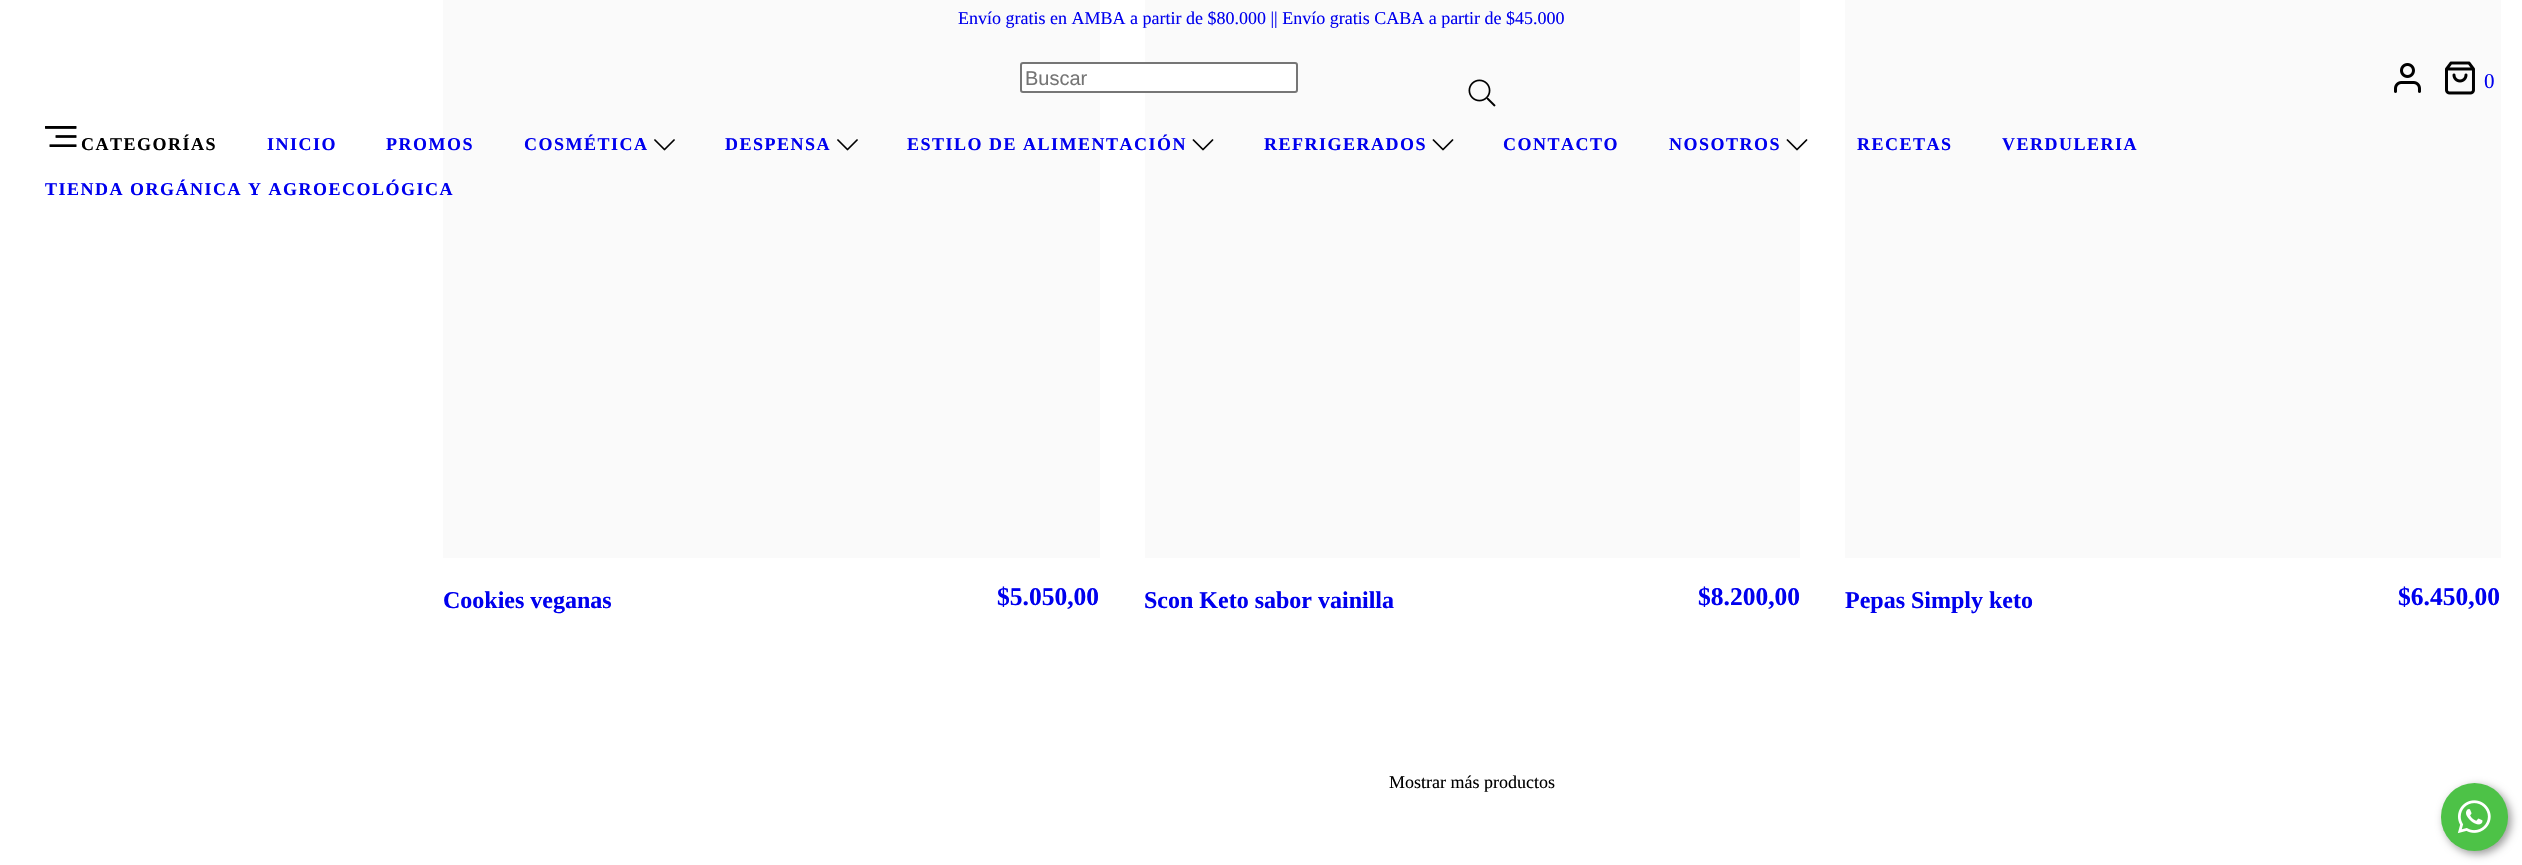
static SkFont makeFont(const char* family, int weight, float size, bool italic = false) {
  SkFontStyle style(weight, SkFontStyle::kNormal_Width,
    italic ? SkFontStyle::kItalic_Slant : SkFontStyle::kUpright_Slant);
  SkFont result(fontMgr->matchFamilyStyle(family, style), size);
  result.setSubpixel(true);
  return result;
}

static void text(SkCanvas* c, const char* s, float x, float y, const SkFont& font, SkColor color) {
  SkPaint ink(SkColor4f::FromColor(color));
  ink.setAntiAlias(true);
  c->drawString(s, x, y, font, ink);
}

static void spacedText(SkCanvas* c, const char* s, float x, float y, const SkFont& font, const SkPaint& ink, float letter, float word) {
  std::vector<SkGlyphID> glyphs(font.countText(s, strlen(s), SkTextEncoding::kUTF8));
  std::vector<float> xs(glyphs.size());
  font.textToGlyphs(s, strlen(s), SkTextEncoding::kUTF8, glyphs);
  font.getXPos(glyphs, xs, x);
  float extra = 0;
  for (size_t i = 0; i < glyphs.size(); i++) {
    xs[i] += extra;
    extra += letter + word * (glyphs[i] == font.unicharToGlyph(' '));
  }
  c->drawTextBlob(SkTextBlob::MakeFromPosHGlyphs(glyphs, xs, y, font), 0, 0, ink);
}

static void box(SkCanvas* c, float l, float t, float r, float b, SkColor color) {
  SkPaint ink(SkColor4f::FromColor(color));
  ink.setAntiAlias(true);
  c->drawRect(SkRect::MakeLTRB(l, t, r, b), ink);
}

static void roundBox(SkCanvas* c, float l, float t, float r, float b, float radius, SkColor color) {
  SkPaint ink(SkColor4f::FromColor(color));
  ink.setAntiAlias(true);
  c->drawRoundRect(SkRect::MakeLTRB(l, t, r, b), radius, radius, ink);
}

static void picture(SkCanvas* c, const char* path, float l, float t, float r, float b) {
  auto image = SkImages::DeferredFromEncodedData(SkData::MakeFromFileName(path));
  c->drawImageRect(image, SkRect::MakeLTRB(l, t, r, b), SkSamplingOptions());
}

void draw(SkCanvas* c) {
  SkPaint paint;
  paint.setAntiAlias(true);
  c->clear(0xffffffff);
  box(c, 443, 0, 1100, 558, 0xfffafafa);
  box(c, 1145, 0, 1800, 558, 0xfffafafa);
  SkFont face1 = makeFont("Liberation Serif", 400, 18);
  text(c, "Envío gratis en AMBA a partir de $80.000 || Envío gratis CABA a partir de $45.000", 958, 24, face1, 0xff0000ee);
  paint.setColor(0xffffffff);
  c->drawRoundRect(SkRect::MakeLTRB(1021, 63, 1297, 92), 2, 2, paint);
  paint.setStyle(SkPaint::kStroke_Style);
  paint.setStrokeWidth(2);
  paint.setColor(0xff767676);
  c->drawRoundRect(SkRect::MakeLTRB(1021, 63, 1297, 92), 2, 2, paint);
  SkFont face2 = makeFont("Liberation Sans", 400, 20);
  text(c, "Buscar", 1025, 85, face2, 0xff757575);
  picture(c, "img_01.png", 1468, 79, 1496, 107);
  box(c, 1845, 0, 2501, 558, 0xfffafafa);
  picture(c, "img_02.png", 2394, 63, 2421, 93);
  picture(c, "img_03.png", 2445, 61, 2475, 95);
  SkFont face3 = makeFont("Liberation Serif", 400, 21);
  text(c, "0", 2484, 88, face3, 0xff0000ee);
  picture(c, "img_04.png", 45, 126, 77, 147);
  SkFont face4 = makeFont("Liberation Serif", 700, 18);
  paint.setStyle(SkPaint::kFill_Style);
  paint.setColor(0xff000000);
  spacedText(c, "CATEGORÍAS", 81, 150, face4, paint, 1.5f, 0);
  paint.setColor(0xff0000ee);
  spacedText(c, "INICIO", 267, 150, face4, paint, 1.5f, 0);
  spacedText(c, "PROMOS", 386, 150, face4, paint, 1.5f, 0);
  spacedText(c, "COSMÉTICA", 524, 150, face4, paint, 1.5f, 0);
  picture(c, "img_05.png", 654, 139, 675, 151);
  spacedText(c, "DESPENSA", 725, 150, face4, paint, 1.5f, 0);
  picture(c, "img_05.png", 837, 139, 858, 151);
  spacedText(c, "ESTILO DE ALIMENTACIÓN", 907, 150, face4, paint, 1.5f, 0);
  picture(c, "img_06.png", 1192, 139, 1214, 151);
  spacedText(c, "REFRIGERADOS", 1264, 150, face4, paint, 1.5f, 0);
  picture(c, "img_06.png", 1432, 139, 1454, 151);
  spacedText(c, "CONTACTO", 1503, 150, face4, paint, 1.5f, 0);
  spacedText(c, "NOSOTROS", 1669, 150, face4, paint, 1.5f, 0);
  picture(c, "img_07.png", 1786, 139, 1808, 151);
  spacedText(c, "RECETAS", 1857, 150, face4, paint, 1.5f, 0);
  spacedText(c, "VERDULERIA", 2002, 150, face4, paint, 1.5f, 0);
  spacedText(c, "TIENDA ORGÁNICA Y AGROECOLÓGICA", 45, 195, face4, paint, 1.5f, 0);
  SkFont face5 = makeFont("Liberation Serif", 700, 24);
  text(c, "Cookies veganas", 443, 608, face5, 0xff0000ee);
  SkFont face6 = makeFont("Liberation Serif", 700, 25.5f);
  text(c, "$5.050,00", 997, 605, face6, 0xff0000ee);
  text(c, "Scon Keto sabor vainilla", 1144, 608, face5, 0xff0000ee);
  text(c, "$8.200,00", 1698, 605, face6, 0xff0000ee);
  text(c, "Pepas Simply keto", 1845, 608, face5, 0xff0000ee);
  text(c, "$6.450,00", 2398, 605, face6, 0xff0000ee);
  text(c, "Mostrar más productos", 1389, 788, face1, 0xff000000);
  paint.setColor(0x66000000);
  paint.setMaskFilter(SkMaskFilter::MakeBlur(kNormal_SkBlurStyle, 4.5f));
  c->drawRoundRect(SkRect::MakeLTRB(2444, 786, 2511, 854), 33.5f, 33.5f, paint);
  paint.setMaskFilter(nullptr);
  roundBox(c, 2441, 783, 2508, 851, 33.5f, 0xff4dc247);
  picture(c, "img_08.png", 2457, 800, 2491, 834);
}
